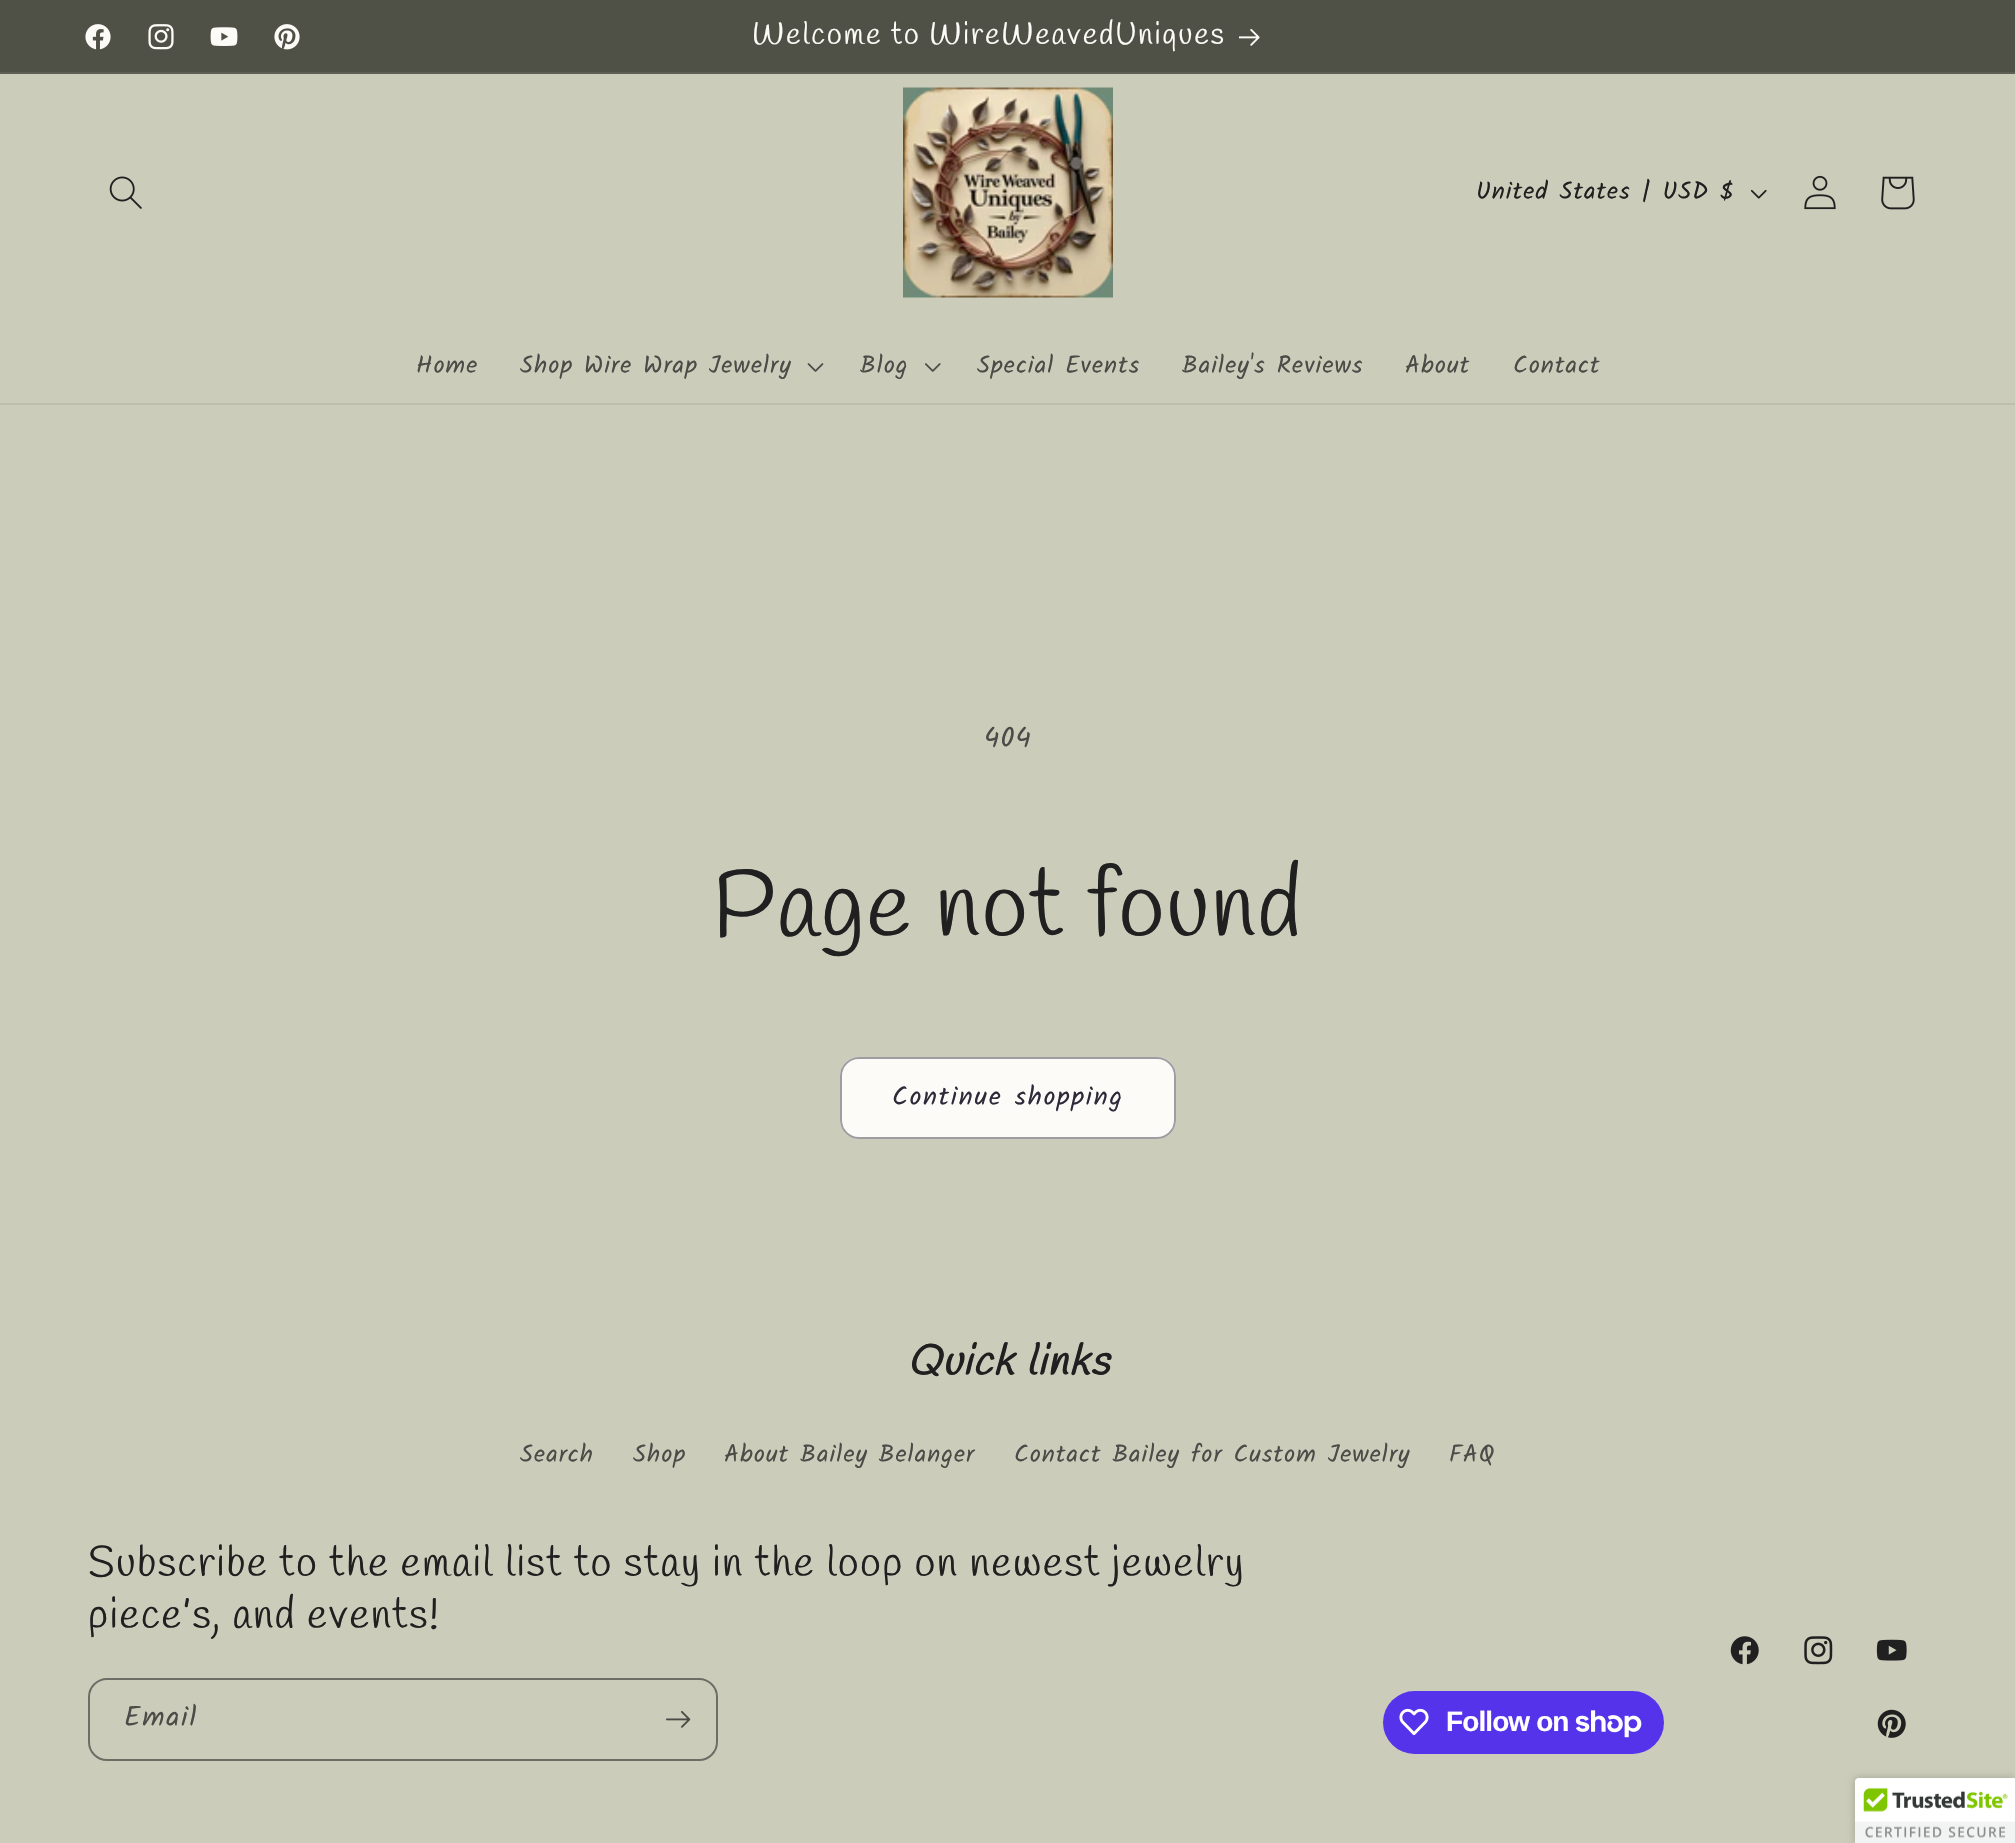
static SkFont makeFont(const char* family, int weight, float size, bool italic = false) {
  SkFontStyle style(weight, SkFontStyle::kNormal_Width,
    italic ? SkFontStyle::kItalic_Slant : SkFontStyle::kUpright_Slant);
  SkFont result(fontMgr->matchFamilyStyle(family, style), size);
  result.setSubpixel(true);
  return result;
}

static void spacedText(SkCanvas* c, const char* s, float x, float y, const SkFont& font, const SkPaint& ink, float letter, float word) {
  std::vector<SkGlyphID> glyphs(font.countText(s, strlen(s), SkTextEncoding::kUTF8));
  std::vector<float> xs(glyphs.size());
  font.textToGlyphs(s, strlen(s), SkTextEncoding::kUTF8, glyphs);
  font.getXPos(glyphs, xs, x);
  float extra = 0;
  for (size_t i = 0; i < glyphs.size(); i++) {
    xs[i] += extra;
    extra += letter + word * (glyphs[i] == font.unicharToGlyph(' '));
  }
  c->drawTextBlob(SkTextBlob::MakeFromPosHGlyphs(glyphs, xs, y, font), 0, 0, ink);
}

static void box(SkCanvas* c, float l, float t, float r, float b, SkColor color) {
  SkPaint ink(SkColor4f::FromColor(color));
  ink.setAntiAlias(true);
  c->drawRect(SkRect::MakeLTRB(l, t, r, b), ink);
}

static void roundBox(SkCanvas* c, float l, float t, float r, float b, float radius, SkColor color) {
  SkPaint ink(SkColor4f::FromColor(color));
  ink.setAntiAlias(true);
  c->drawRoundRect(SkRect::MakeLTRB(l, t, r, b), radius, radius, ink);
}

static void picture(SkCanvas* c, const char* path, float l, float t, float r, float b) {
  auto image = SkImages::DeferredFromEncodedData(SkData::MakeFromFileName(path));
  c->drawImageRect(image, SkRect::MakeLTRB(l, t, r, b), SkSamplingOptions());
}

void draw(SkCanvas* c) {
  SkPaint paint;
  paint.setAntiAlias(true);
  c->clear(0xffccccbb);
  box(c, 0, 0, 2015, 72, 0xff505146);
  box(c, 0, 72, 2015, 74, 0xff5e5f54);
  picture(c, "img_01.png", 85, 24, 111, 50);
  picture(c, "img_02.png", 148, 24, 174, 50);
  picture(c, "img_03.png", 210, 27, 238, 46);
  picture(c, "img_04.png", 274, 24, 300, 50);
  SkFont face1 = makeFont("Handlee", 400, 30.75f);
  paint.setColor(0xfffdfbf7);
  spacedText(c, "Welcome to WireWeavedUniques", 752, 44, face1, paint, 1.75f, 0);
  picture(c, "img_05.png", 1239, 29, 1260, 46);
  box(c, 0, 403, 2015, 405, 0xffbebeaf);
  picture(c, "img_06.png", 109, 176, 142, 209);
  picture(c, "img_07.png", 903, 87, 1113, 298);
  SkFont face2 = makeFont("Kalam", 400, 24.5f);
  paint.setColor(0xff202020);
  spacedText(c, "United States | USD $", 1476, 199, face2, paint, 1.05f, 0);
  picture(c, "img_08.png", 1750, 189, 1767, 199);
  picture(c, "img_09.png", 1804, 175, 1836, 210);
  picture(c, "img_10.png", 1881, 176, 1915, 210);
  paint.setColor(0xff4b4b47);
  spacedText(c, "Home", 416, 373, face2, paint, 1.05f, 0);
  spacedText(c, "Shop Wire Wrap Jewelry", 520, 373, face2, paint, 1.05f, 0);
  picture(c, "img_11.png", 807, 363, 824, 372);
  spacedText(c, "Blog", 860, 373, face2, paint, 1.05f, 0);
  picture(c, "img_12.png", 925, 363, 941, 372);
  spacedText(c, "Special Events", 977, 373, face2, paint, 1.05f, 0);
  spacedText(c, "Bailey's Reviews", 1182, 373, face2, paint, 1.05f, 0);
  spacedText(c, "About", 1405, 373, face2, paint, 1.05f, 0);
  spacedText(c, "Contact", 1513, 373, face2, paint, 1.05f, 0);
  SkFont face3 = makeFont("Kalam", 400, 28);
  spacedText(c, "404", 984, 747, face3, paint, 1.05f, 0);
  SkFont face4 = makeFont("Handlee", 400, 94.5f);
  paint.setColor(0xff202020);
  spacedText(c, "Page not found", 712, 936, face4, paint, 1.42f, 0);
  roundBox(c, 840, 1057, 1176, 1139, 19, 0xfffdfbf7);
  paint.setStyle(SkPaint::kStroke_Style);
  paint.setStrokeWidth(2);
  paint.setColor(0xfffdfbf7);
  c->drawRoundRect(SkRect::MakeLTRB(841, 1058, 1175, 1138), 18, 18, paint);
  paint.setColor(0x732e2a39);
  c->drawRoundRect(SkRect::MakeLTRB(841, 1058, 1175, 1138), 18, 18, paint);
  SkFont face5 = makeFont("Kalam", 400, 26.25f);
  paint.setStyle(SkPaint::kFill_Style);
  paint.setColor(0xff2e2a39);
  spacedText(c, "Continue shopping", 892, 1105, face5, paint, 1.75f, 0);
  SkFont face6 = makeFont("Handlee", 700, 42.5f, true);
  paint.setColor(0xff202020);
  spacedText(c, "Quick links", 907, 1375, face6, paint, 1.42f, 0);
  paint.setColor(0xff4b4b47);
  spacedText(c, "Search", 520, 1462, face2, paint, 1.05f, 0);
  spacedText(c, "Shop", 633, 1462, face2, paint, 1.05f, 0);
  spacedText(c, "About Bailey Belanger", 724, 1462, face2, paint, 1.05f, 0);
  spacedText(c, "Contact Bailey for Custom Jewelry", 1014, 1462, face2, paint, 1.05f, 0);
  spacedText(c, "FAQ", 1449, 1462, face2, paint, 1.05f, 0);
  SkFont face7 = makeFont("Handlee", 400, 42.5f);
  paint.setColor(0xff202020);
  spacedText(c, "Subscribe to the email list to stay in the loop on newest jewelry", 88, 1576, face7, paint, 1.42f, 0);
  spacedText(c, "piece’s, and events!", 88, 1628, face7, paint, 1.42f, 0);
  paint.setStyle(SkPaint::kStroke_Style);
  paint.setColor(0xff6d6d66);
  c->drawRoundRect(SkRect::MakeLTRB(89, 1679, 717, 1760), 18, 18, paint);
  paint.setStyle(SkPaint::kFill_Style);
  paint.setColor(0xff4b4b47);
  spacedText(c, "Email", 124, 1726, face3, paint, 1.75f, 0);
  picture(c, "img_13.png", 666, 1711, 691, 1728);
  roundBox(c, 1383, 1691, 1664, 1754, 31.5f, 0xff5433eb);
  picture(c, "img_14.png", 1399, 1708, 1429, 1736);
  SkFont face8 = makeFont("Liberation Sans", 700, 28);
  paint.setColor(0xffffffff);
  spacedText(c, "Follow on", 1446, 1731, face8, paint, -0.9f, 0);
  picture(c, "img_15.png", 1575, 1710, 1642, 1738);
  picture(c, "img_16.png", 1730, 1636, 1759, 1665);
  picture(c, "img_17.png", 1804, 1636, 1833, 1665);
  picture(c, "img_18.png", 1876, 1639, 1907, 1661);
  picture(c, "img_19.png", 1877, 1709, 1906, 1738);
  paint.setColor(0x33000000);
  paint.setMaskFilter(SkMaskFilter::MakeBlur(kNormal_SkBlurStyle, 4.5f));
  c->drawRoundRect(SkRect::MakeLTRB(1855, 1778, 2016, 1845), 4, 4, paint);
  paint.setMaskFilter(nullptr);
  paint.setColor(0xffffffff);
  c->drawPath(SkPathBuilder().moveTo(1859, 1778).lineTo(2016, 1778).lineTo(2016, 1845).lineTo(1855, 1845).lineTo(1855, 1782).cubicTo(1855, 1780, 1857, 1778, 1859, 1778).close().detach(), paint);
  picture(c, "img_20.png", 1855, 1778, 2015, 1843);
}
